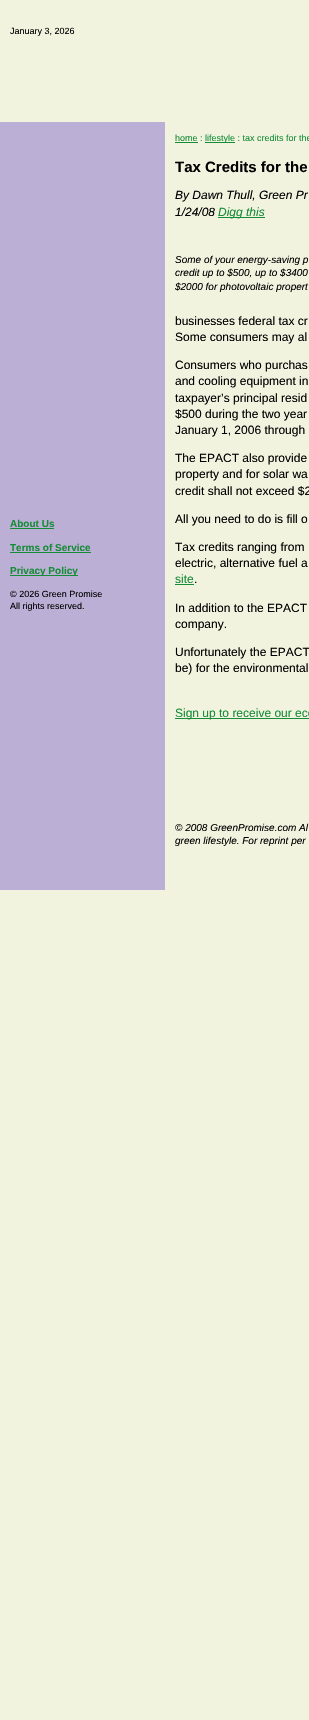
static SkFont makeFont(const char* family, int weight, float size, bool italic = false) {
  SkFontStyle style(weight, SkFontStyle::kNormal_Width,
    italic ? SkFontStyle::kItalic_Slant : SkFontStyle::kUpright_Slant);
  SkFont result(fontMgr->matchFamilyStyle(family, style), size);
  result.setSubpixel(true);
  return result;
}

static void text(SkCanvas* c, const char* s, float x, float y, const SkFont& font, SkColor color) {
  SkPaint ink(SkColor4f::FromColor(color));
  ink.setAntiAlias(true);
  c->drawString(s, x, y, font, ink);
}

static void box(SkCanvas* c, float l, float t, float r, float b, SkColor color) {
  SkPaint ink(SkColor4f::FromColor(color));
  ink.setAntiAlias(true);
  c->drawRect(SkRect::MakeLTRB(l, t, r, b), ink);
}

void draw(SkCanvas* c) {
  SkPaint paint;
  paint.setAntiAlias(true);
  c->clear(0xfff1f3df);
  SkFont face1 = makeFont("Liberation Sans", 400, 9);
  text(c, "January 3, 2026", 10, 34, face1, 0xff000000);
  box(c, 0, 122, 165, 890, 0xffbcafd6);
  SkFont face2 = makeFont("Liberation Sans", 700, 10);
  text(c, "About Us", 10, 527, face2, 0xff168c37);
  box(c, 10, 528, 54, 529, 0xff168c37);
  text(c, "Terms of Service", 10, 551, face2, 0xff168c37);
  box(c, 10, 552, 91, 553, 0xff168c37);
  box(c, 10, 575, 78, 576, 0xff168c37);
  text(c, "Privacy Policy", 10, 574, face2, 0xff168c37);
  text(c, "© 2026 Green Promise", 10, 597, face1, 0xff000000);
  text(c, "All rights reserved.", 10, 609, face1, 0xff000000);
  text(c, "home :", 175, 141, face1, 0xff168c37);
  box(c, 175, 142, 198, 143, 0xff168c37);
  box(c, 205, 142, 235, 143, 0xff168c37);
  text(c, "lifestyle : tax credits for the", 205, 141, face1, 0xff168c37);
  SkFont face3 = makeFont("Liberation Sans", 700, 15);
  text(c, "Tax Credits for the", 175, 172, face3, 0xff000000);
  SkFont face4 = makeFont("Liberation Sans", 400, 12, true);
  text(c, "By Dawn Thull, Green Pr", 175, 199, face4, 0xff000000);
  text(c, "1/24/08", 175, 216, face4, 0xff000000);
  box(c, 218, 217, 265, 218, 0xff168c37);
  text(c, "Digg this", 218, 216, face4, 0xff168c37);
  SkFont face5 = makeFont("Liberation Sans", 400, 10, true);
  text(c, "Some of your energy-saving p", 175, 263, face5, 0xff000000);
  text(c, "credit up to $500, up to $3400", 175, 276, face5, 0xff000000);
  text(c, "$2000 for photovoltaic propert", 175, 290, face5, 0xff000000);
  SkFont face6 = makeFont("Liberation Sans", 400, 12);
  text(c, "businesses federal tax cr", 175, 325, face6, 0xff000000);
  text(c, "Some consumers may al", 175, 341, face6, 0xff000000);
  text(c, "Consumers who purchas", 175, 369, face6, 0xff000000);
  text(c, "and cooling equipment in", 175, 385, face6, 0xff000000);
  text(c, "taxpayer’s principal resid", 175, 402, face6, 0xff000000);
  text(c, "$500 during the two year", 175, 418, face6, 0xff000000);
  text(c, "January 1, 2006 through", 175, 434, face6, 0xff000000);
  text(c, "The EPACT also provide", 175, 462, face6, 0xff000000);
  text(c, "property and for solar wa", 175, 478, face6, 0xff000000);
  text(c, "credit shall not exceed $2", 175, 495, face6, 0xff000000);
  text(c, "All you need to do is fill o", 175, 523, face6, 0xff000000);
  text(c, "Tax credits ranging from", 175, 551, face6, 0xff000000);
  text(c, "electric, alternative fuel a", 175, 567, face6, 0xff000000);
  text(c, "site", 175, 583, face6, 0xff168c37);
  box(c, 175, 584, 194, 585, 0xff168c37);
  text(c, ".", 194, 583, face6, 0xff000000);
  text(c, "In addition to the EPACT", 175, 612, face6, 0xff000000);
  text(c, "company.", 175, 628, face6, 0xff000000);
  text(c, "Unfortunately the EPACT", 175, 656, face6, 0xff000000);
  text(c, "be) for the environmental", 175, 672, face6, 0xff000000);
  box(c, 175, 718, 309, 719, 0xff168c37);
  text(c, "Sign up to receive our eco", 175, 717, face6, 0xff168c37);
  text(c, "© 2008 GreenPromise.com Al", 175, 831, face5, 0xff000000);
  text(c, "green lifestyle. For reprint per", 175, 844, face5, 0xff000000);
}
